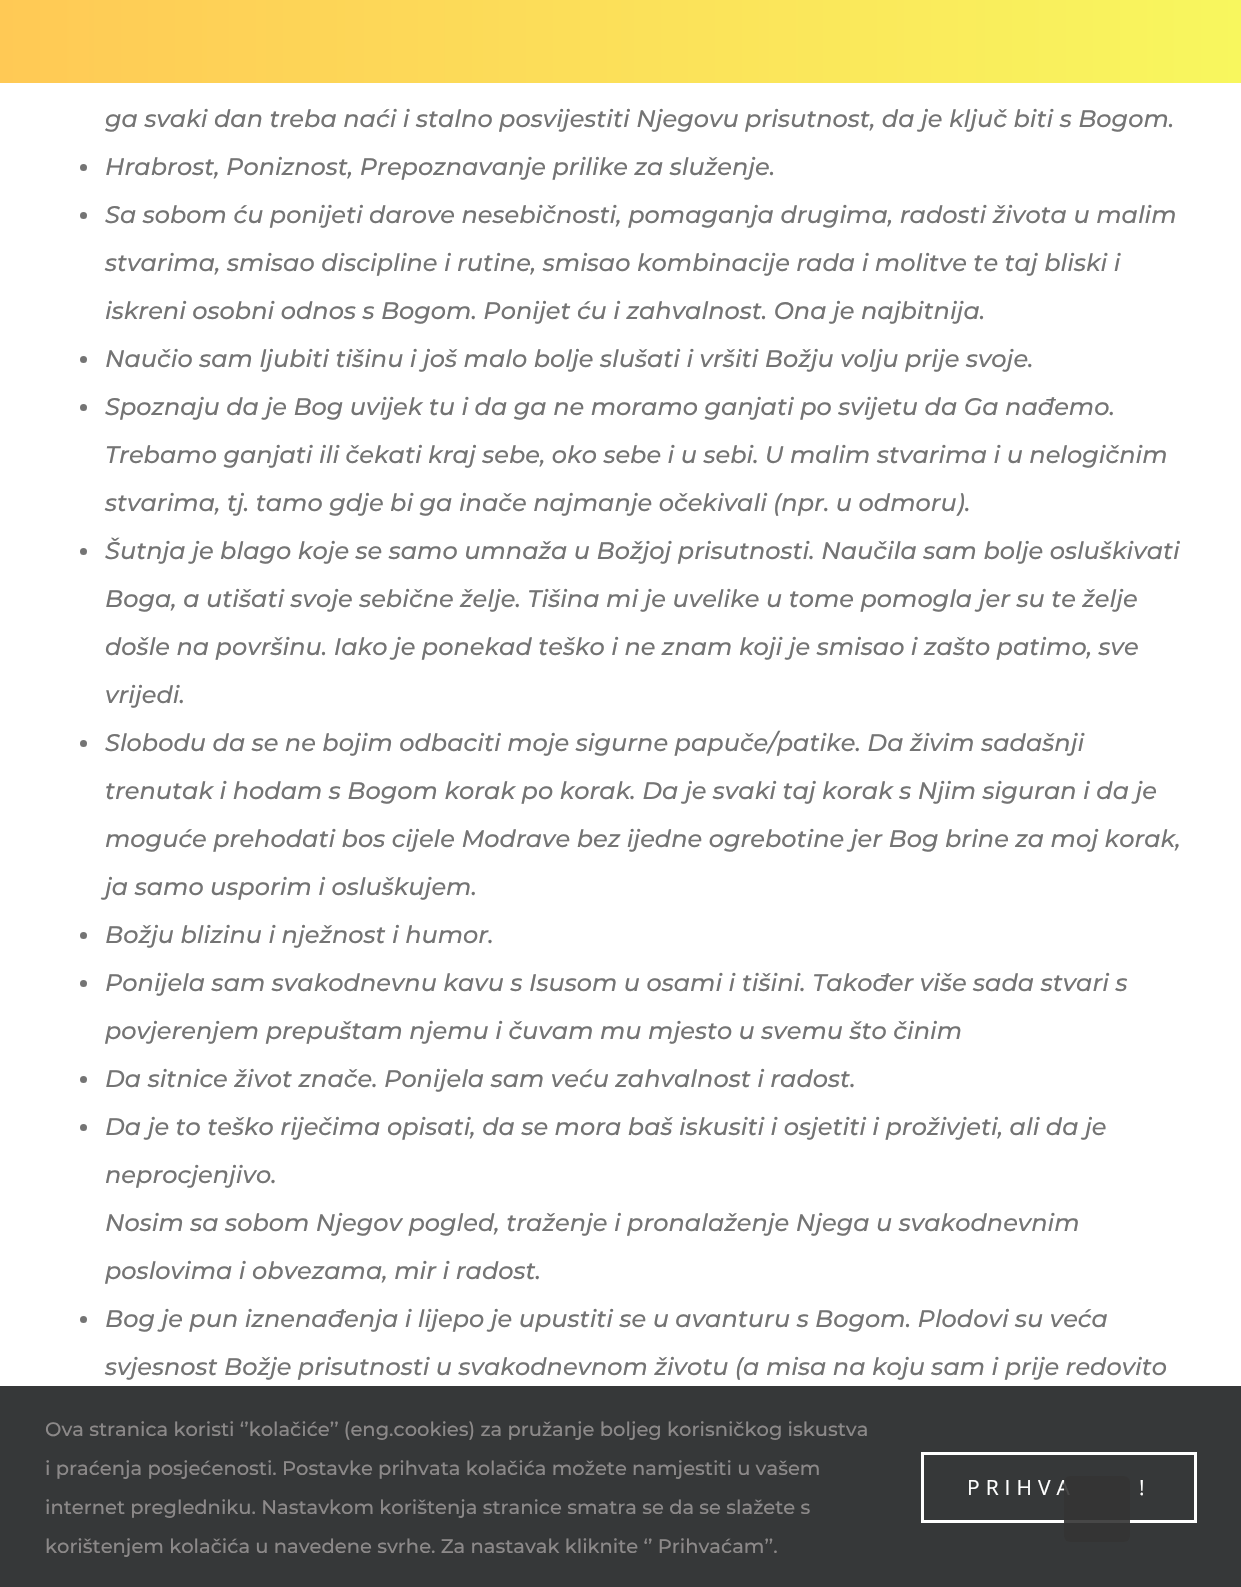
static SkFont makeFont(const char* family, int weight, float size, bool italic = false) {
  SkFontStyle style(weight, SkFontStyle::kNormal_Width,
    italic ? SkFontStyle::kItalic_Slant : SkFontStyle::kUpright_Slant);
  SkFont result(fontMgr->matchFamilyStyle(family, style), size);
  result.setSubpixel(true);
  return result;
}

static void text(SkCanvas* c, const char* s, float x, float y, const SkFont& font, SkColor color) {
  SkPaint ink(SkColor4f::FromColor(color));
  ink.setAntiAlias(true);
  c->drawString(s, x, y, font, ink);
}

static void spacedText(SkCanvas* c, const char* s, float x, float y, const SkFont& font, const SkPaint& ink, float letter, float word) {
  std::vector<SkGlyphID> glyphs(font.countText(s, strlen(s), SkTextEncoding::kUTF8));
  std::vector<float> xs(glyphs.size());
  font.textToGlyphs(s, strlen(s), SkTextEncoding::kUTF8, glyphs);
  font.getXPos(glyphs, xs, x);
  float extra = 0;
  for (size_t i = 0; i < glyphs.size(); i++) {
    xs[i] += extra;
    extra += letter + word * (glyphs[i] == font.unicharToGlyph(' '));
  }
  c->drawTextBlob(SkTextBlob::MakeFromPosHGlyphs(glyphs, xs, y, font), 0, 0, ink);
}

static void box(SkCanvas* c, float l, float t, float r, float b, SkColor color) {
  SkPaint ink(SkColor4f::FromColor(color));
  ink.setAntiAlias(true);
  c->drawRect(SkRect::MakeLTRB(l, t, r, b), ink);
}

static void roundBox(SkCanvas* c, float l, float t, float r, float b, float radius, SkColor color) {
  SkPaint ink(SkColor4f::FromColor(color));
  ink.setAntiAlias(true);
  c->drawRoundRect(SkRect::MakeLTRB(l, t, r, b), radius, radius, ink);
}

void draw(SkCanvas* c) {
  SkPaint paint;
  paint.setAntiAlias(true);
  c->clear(0xffffffff);
  {
    const SkColor colors[] = {0xffffc955, 0xfff8f75e};
    const float stops[] = {0, 1};
    const SkPoint ends[] = {{0, 41}, {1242, 41}};
    paint.setShader(SkGradientShader::MakeLinear(ends, colors, stops, 2, SkTileMode::kClamp));
    paint.setAlpha(255);
  }
  c->drawRect(SkRect::MakeLTRB(0, 0, 1241, 83), paint);
  SkFont face1 = makeFont("Montserrat", 500, 24, true);
  text(c, "ga svaki dan treba naći i stalno posvijestiti Njegovu prisutnost, da je ključ biti s Bogom.", 105, 127, face1, 0xff747474);
  paint.setShader(nullptr);
  paint.setColor(0xff747474);
  c->drawCircle(83.5f, 167.5f, 3.5f, paint);
  text(c, "Hrabrost, Poniznost, Prepoznavanje prilike za služenje.", 105, 175, face1, 0xff747474);
  c->drawCircle(83.5f, 215.5f, 3.5f, paint);
  text(c, "Sa sobom ću ponijeti darove nesebičnosti, pomaganja drugima, radosti života u malim", 105, 223, face1, 0xff747474);
  text(c, "stvarima, smisao discipline i rutine, smisao kombinacije rada i molitve te taj bliski i", 105, 271, face1, 0xff747474);
  text(c, "iskreni osobni odnos s Bogom. Ponijet ću i zahvalnost. Ona je najbitnija.", 105, 319, face1, 0xff747474);
  c->drawCircle(83.5f, 359.5f, 3.5f, paint);
  text(c, "Naučio sam ljubiti tišinu i još malo bolje slušati i vršiti Božju volju prije svoje.", 105, 367, face1, 0xff747474);
  c->drawCircle(83.5f, 407.5f, 3.5f, paint);
  text(c, "Spoznaju da je Bog uvijek tu i da ga ne moramo ganjati po svijetu da Ga nađemo.", 105, 415, face1, 0xff747474);
  text(c, "Trebamo ganjati ili čekati kraj sebe, oko sebe i u sebi. U malim stvarima i u nelogičnim", 105, 463, face1, 0xff747474);
  text(c, "stvarima, tj. tamo gdje bi ga inače najmanje očekivali (npr. u odmoru).", 105, 511, face1, 0xff747474);
  c->drawCircle(83.5f, 551.5f, 3.5f, paint);
  text(c, "Šutnja je blago koje se samo umnaža u Božjoj prisutnosti. Naučila sam bolje osluškivati", 105, 559, face1, 0xff747474);
  text(c, "Boga, a utišati svoje sebične želje. Tišina mi je uvelike u tome pomogla jer su te želje", 105, 607, face1, 0xff747474);
  text(c, "došle na površinu. Iako je ponekad teško i ne znam koji je smisao i zašto patimo, sve", 105, 655, face1, 0xff747474);
  text(c, "vrijedi.", 105, 703, face1, 0xff747474);
  c->drawCircle(83.5f, 743.5f, 3.5f, paint);
  text(c, "Slobodu da se ne bojim odbaciti moje sigurne papuče/patike. Da živim sadašnji", 105, 751, face1, 0xff747474);
  text(c, "trenutak i hodam s Bogom korak po korak. Da je svaki taj korak s Njim siguran i da je", 105, 799, face1, 0xff747474);
  text(c, "moguće prehodati bos cijele Modrave bez ijedne ogrebotine jer Bog brine za moj korak,", 105, 847, face1, 0xff747474);
  text(c, "ja samo usporim i osluškujem.", 105, 895, face1, 0xff747474);
  c->drawCircle(83.5f, 935.5f, 3.5f, paint);
  text(c, "Božju blizinu i nježnost i humor.", 105, 943, face1, 0xff747474);
  c->drawCircle(83.5f, 983.5f, 3.5f, paint);
  text(c, "Ponijela sam svakodnevnu kavu s Isusom u osami i tišini. Također više sada stvari s", 105, 991, face1, 0xff747474);
  text(c, "povjerenjem prepuštam njemu i čuvam mu mjesto u svemu što činim", 105, 1039, face1, 0xff747474);
  c->drawCircle(83.5f, 1079.5f, 3.5f, paint);
  text(c, "Da sitnice život znače. Ponijela sam veću zahvalnost i radost.", 105, 1087, face1, 0xff747474);
  c->drawCircle(83.5f, 1127.5f, 3.5f, paint);
  text(c, "Da je to teško riječima opisati, da se mora baš iskusiti i osjetiti i proživjeti, ali da je", 105, 1135, face1, 0xff747474);
  text(c, "neprocjenjivo.", 105, 1183, face1, 0xff747474);
  text(c, "Nosim sa sobom Njegov pogled, traženje i pronalaženje Njega u svakodnevnim", 105, 1231, face1, 0xff747474);
  text(c, "poslovima i obvezama, mir i radost.", 105, 1279, face1, 0xff747474);
  c->drawCircle(83.5f, 1319.5f, 3.5f, paint);
  text(c, "Bog je pun iznenađenja i lijepo je upustiti se u avanturu s Bogom. Plodovi su veća", 105, 1327, face1, 0xff747474);
  text(c, "svjesnost Božje prisutnosti u svakodnevnom životu (a misa na koju sam i prije redovito", 105, 1375, face1, 0xff747474);
  box(c, 0, 1386, 1241, 1587, 0xff363839);
  SkFont face2 = makeFont("Montserrat", 500, 19.5f);
  text(c, "Ova stranica koristi ‘’kolačiće’’ (eng.cookies) za pružanje boljeg korisničkog iskustva", 45, 1436, face2, 0xff8c8989);
  text(c, "i praćenja posjećenosti. Postavke prihvata kolačića možete namjestiti u vašem", 45, 1475, face2, 0xff8c8989);
  text(c, "internet pregledniku. Nastavkom korištenja stranice smatra se da se slažete s", 45, 1514, face2, 0xff8c8989);
  text(c, "korištenjem kolačića u navedene svrhe. Za nastavak kliknite ‘’ Prihvaćam’’.", 45, 1553, face2, 0xff8c8989);
  paint.setStyle(SkPaint::kStroke_Style);
  paint.setStrokeWidth(3);
  paint.setColor(0xffffffff);
  c->drawRect(SkRect::MakeLTRB(922.5f, 1453.5f, 1195.5f, 1521.5f), paint);
  SkFont face3 = makeFont("Open Sans", 400, 21);
  paint.setStyle(SkPaint::kFill_Style);
  spacedText(c, "PRIHVA", 967, 1495, face3, paint, 6, 0);
  spacedText(c, "!", 1139, 1495, face3, paint, 6, 0);
  roundBox(c, 1064, 1476, 1130, 1542, 6, 0xe6333333);
}
